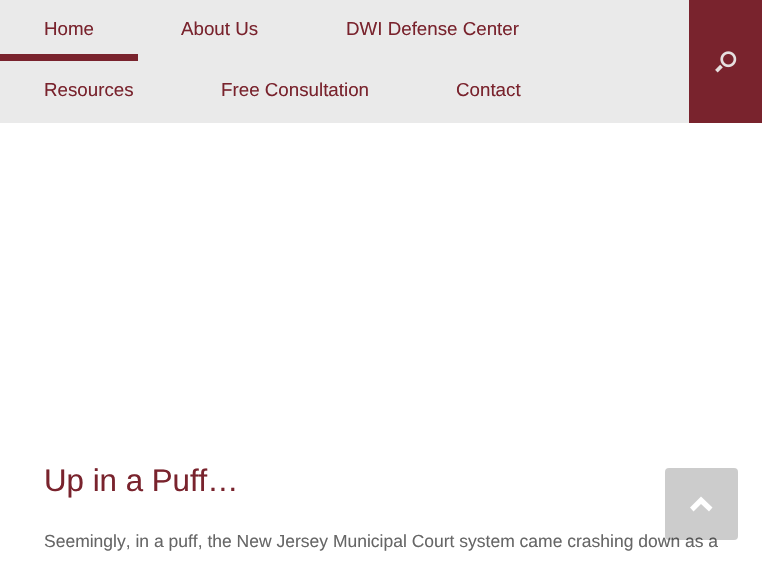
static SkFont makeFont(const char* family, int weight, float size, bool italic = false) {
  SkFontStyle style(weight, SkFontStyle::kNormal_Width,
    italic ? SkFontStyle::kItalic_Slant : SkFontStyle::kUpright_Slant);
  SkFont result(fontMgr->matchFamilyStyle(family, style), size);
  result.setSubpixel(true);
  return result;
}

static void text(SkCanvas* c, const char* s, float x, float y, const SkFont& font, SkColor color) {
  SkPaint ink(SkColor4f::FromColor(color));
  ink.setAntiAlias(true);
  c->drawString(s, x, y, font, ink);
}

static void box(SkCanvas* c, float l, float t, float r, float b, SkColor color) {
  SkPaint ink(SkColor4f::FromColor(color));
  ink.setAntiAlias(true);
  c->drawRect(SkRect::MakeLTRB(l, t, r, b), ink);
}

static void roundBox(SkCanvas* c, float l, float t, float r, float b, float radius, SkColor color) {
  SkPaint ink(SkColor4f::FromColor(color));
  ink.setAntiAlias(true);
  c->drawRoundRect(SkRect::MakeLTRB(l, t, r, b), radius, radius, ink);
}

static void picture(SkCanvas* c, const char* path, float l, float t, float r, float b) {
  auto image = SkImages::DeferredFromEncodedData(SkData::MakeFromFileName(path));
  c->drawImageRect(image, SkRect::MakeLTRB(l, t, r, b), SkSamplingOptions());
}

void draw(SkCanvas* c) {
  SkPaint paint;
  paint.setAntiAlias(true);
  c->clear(0xffffffff);
  box(c, 0, 0, 689, 123, 0xffeaeaea);
  box(c, 0, 54, 138, 61, 0xff79232d);
  SkFont face1 = makeFont("Liberation Sans", 400, 18.75f);
  text(c, "Home", 44, 35, face1, 0xff79232d);
  text(c, "About Us", 181, 35, face1, 0xff79232d);
  text(c, "DWI Defense Center", 346, 35, face1, 0xff79232d);
  text(c, "Resources", 44, 96, face1, 0xff79232d);
  text(c, "Free Consultation", 221, 96, face1, 0xff79232d);
  text(c, "Contact", 456, 96, face1, 0xff79232d);
  box(c, 689, 0, 762, 123, 0xff79232d);
  picture(c, "img_01.png", 715, 51, 737, 73);
  SkFont face2 = makeFont("Liberation Sans", 400, 31.25f);
  text(c, "Up in a Puff…", 44, 491, face2, 0xff79232d);
  SkFont face3 = makeFont("Liberation Sans", 400, 17.5f);
  text(c, "Seemingly, in a puff, the New Jersey Municipal Court system came crashing down as a", 44, 547, face3, 0xff666666);
  roundBox(c, 665, 468, 738, 540, 4, 0x33000000);
  paint.setColor(0xffffffff);
  c->drawPath(SkPathBuilder().moveTo(712.5f, 507.5f).lineTo(701, 496.5f).lineTo(690, 507.5f).lineTo(693.5f, 511.5f).lineTo(701, 504).lineTo(709, 511.5f).close().detach(), paint);
}
